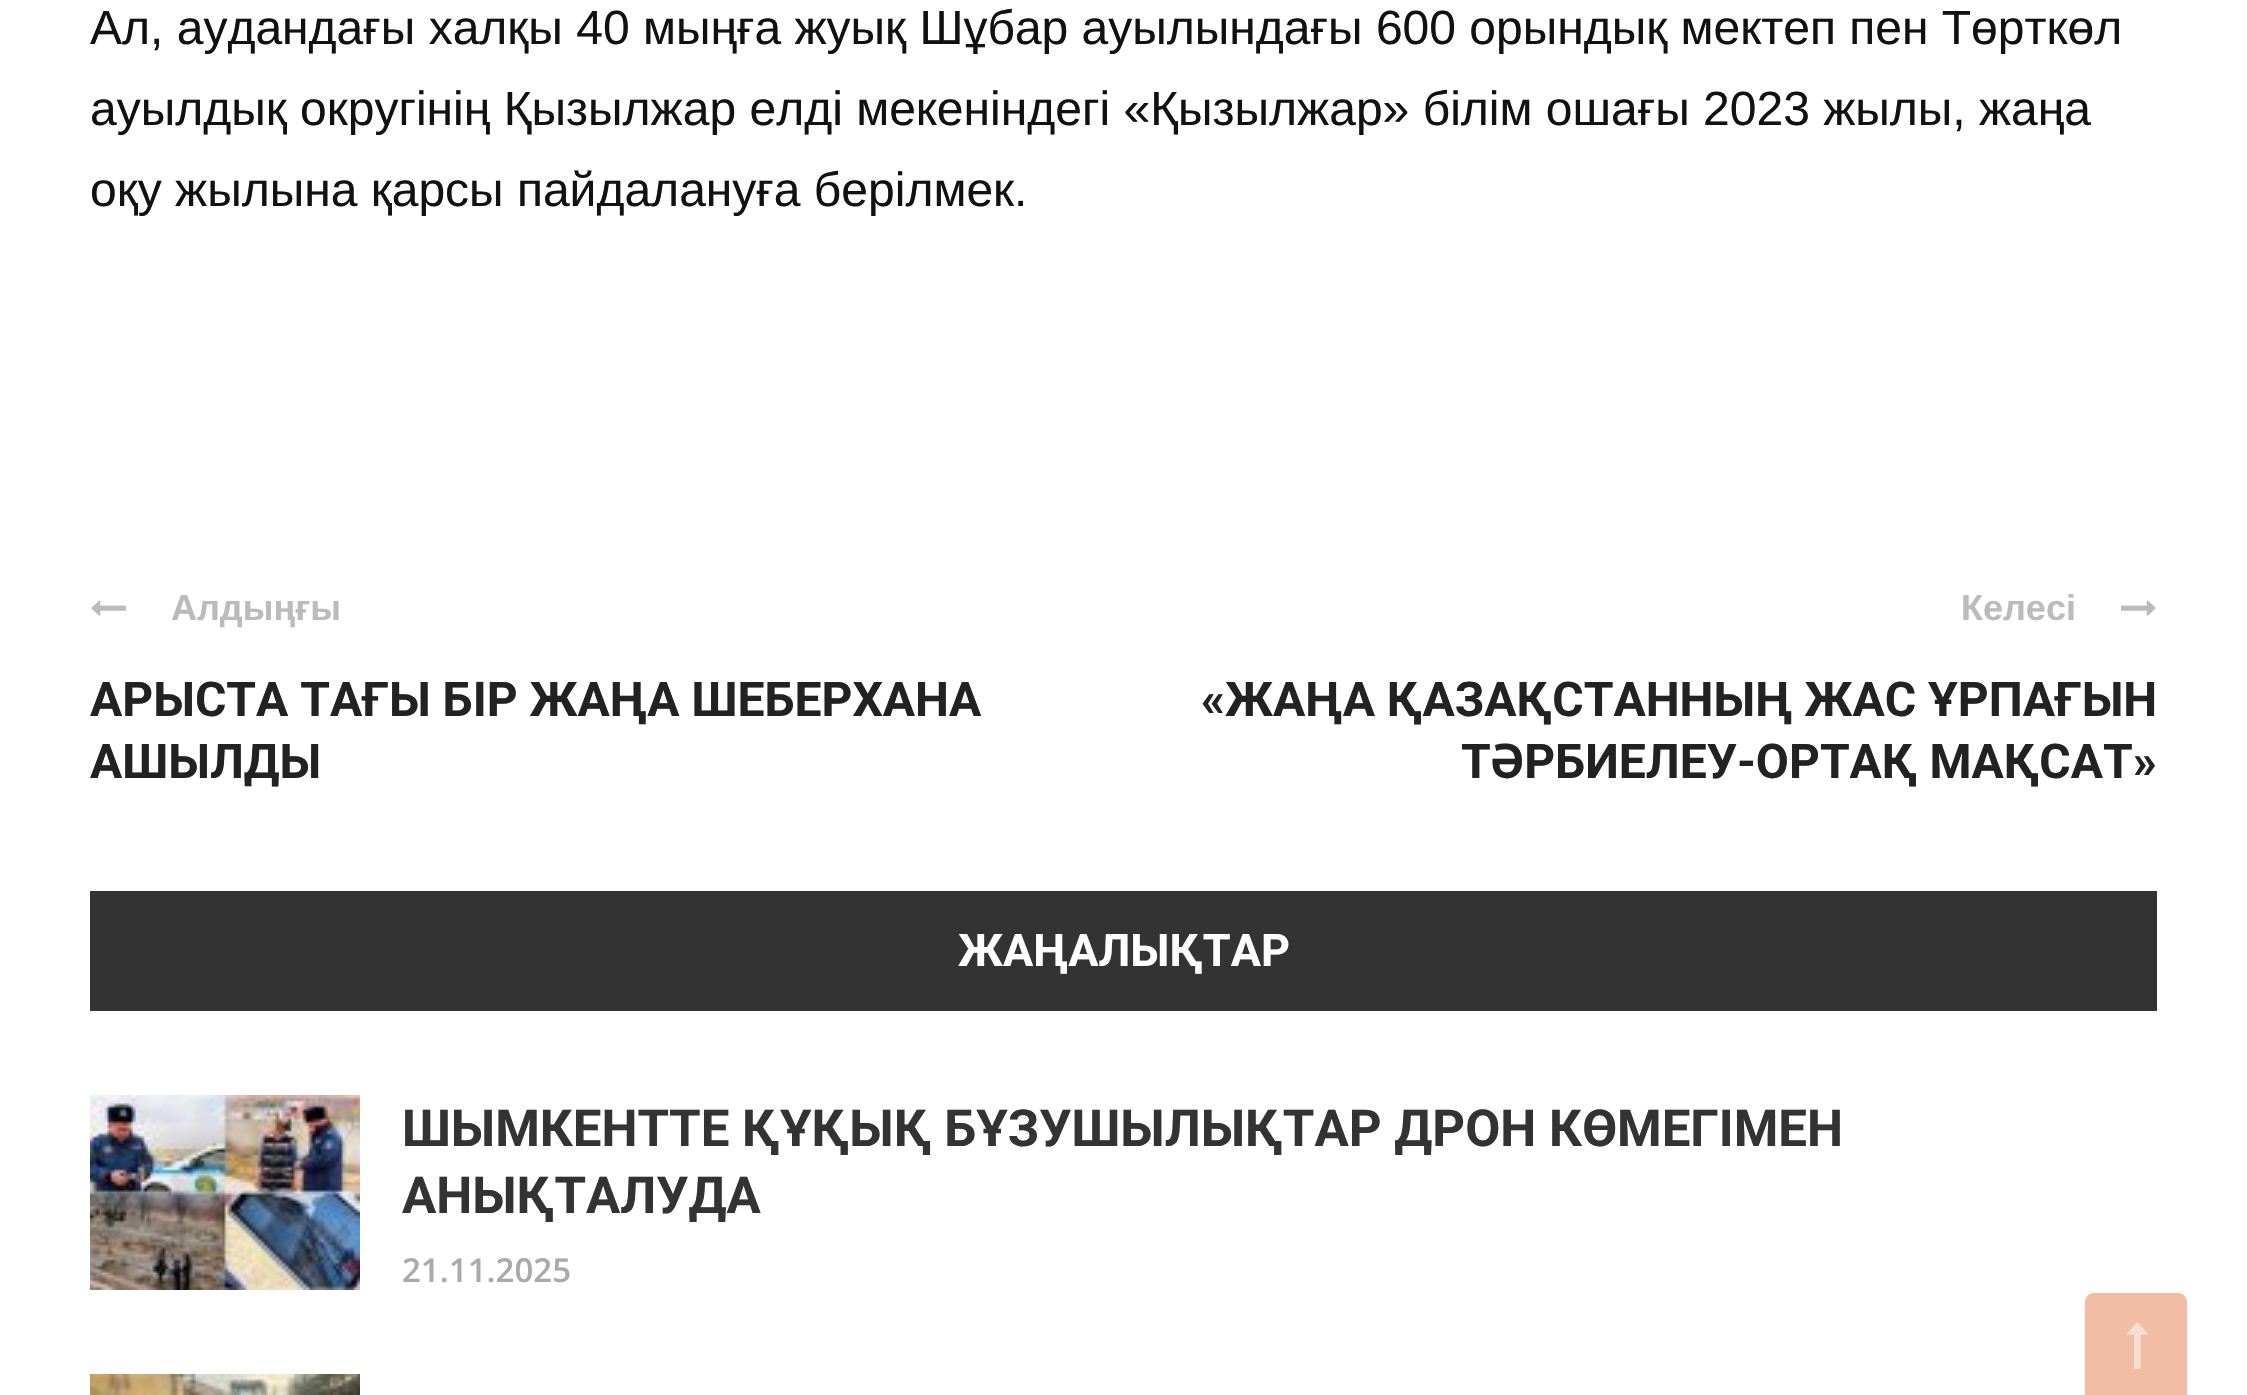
static SkFont makeFont(const char* family, int weight, float size, bool italic = false) {
  SkFontStyle style(weight, SkFontStyle::kNormal_Width,
    italic ? SkFontStyle::kItalic_Slant : SkFontStyle::kUpright_Slant);
  SkFont result(fontMgr->matchFamilyStyle(family, style), size);
  result.setSubpixel(true);
  return result;
}

static void text(SkCanvas* c, const char* s, float x, float y, const SkFont& font, SkColor color) {
  SkPaint ink(SkColor4f::FromColor(color));
  ink.setAntiAlias(true);
  c->drawString(s, x, y, font, ink);
}

static void box(SkCanvas* c, float l, float t, float r, float b, SkColor color) {
  SkPaint ink(SkColor4f::FromColor(color));
  ink.setAntiAlias(true);
  c->drawRect(SkRect::MakeLTRB(l, t, r, b), ink);
}

static void picture(SkCanvas* c, const char* path, float l, float t, float r, float b) {
  auto image = SkImages::DeferredFromEncodedData(SkData::MakeFromFileName(path));
  c->drawImageRect(image, SkRect::MakeLTRB(l, t, r, b), SkSamplingOptions());
}

void draw(SkCanvas* c) {
  SkPaint paint;
  paint.setAntiAlias(true);
  c->clear(0xffffffff);
  SkFont face1 = makeFont("Liberation Sans", 400, 48);
  text(c, "Ал, аудандағы халқы 40 мыңға жуық Шұбар ауылындағы 600 орындық мектеп пен Төрткөл", 90, 44, face1, 0xff111111);
  text(c, "ауылдық округінің Қызылжар елді мекеніндегі «Қызылжар» білім ошағы 2023 жылы, жаңа", 90, 125, face1, 0xff111111);
  text(c, "оқу жылына қарсы пайдалануға берілмек.", 90, 206, face1, 0xff111111);
  picture(c, "img_01.png", 91, 600, 126, 616);
  SkFont face2 = makeFont("Liberation Sans", 700, 36);
  text(c, "Алдыңғы", 171, 620, face2, 0xffbbbbbb);
  SkFont face3 = makeFont("Roboto", 700, 48);
  text(c, "АРЫСТА ТАҒЫ БІР ЖАҢА ШЕБЕРХАНА", 90, 716, face3, 0xff222222);
  text(c, "АШЫЛДЫ", 90, 778, face3, 0xff222222);
  text(c, "Келесі", 1961, 620, face2, 0xffbbbbbb);
  picture(c, "img_02.png", 2121, 600, 2156, 616);
  text(c, "«ЖАҢА ҚАЗАҚСТАННЫҢ ЖАС ҰРПАҒЫН", 1201, 716, face3, 0xff222222);
  text(c, "ТӘРБИЕЛЕУ-ОРТАҚ МАҚСАТ»", 1461, 778, face3, 0xff222222);
  box(c, 90, 891, 2157, 1011, 0xff333333);
  SkFont face4 = makeFont("Roboto", 700, 45);
  text(c, "ЖАҢАЛЫҚТАР", 958, 966, face4, 0xffffffff);
  picture(c, "img_03.png", 90, 1095, 360, 1290);
  SkFont face5 = makeFont("Roboto", 700, 51);
  text(c, "ШЫМКЕНТТЕ ҚҰҚЫҚ БҰЗУШЫЛЫҚТАР ДРОН КӨМЕГІМЕН", 402, 1146, face5, 0xff333333);
  text(c, "АНЫҚТАЛУДА", 402, 1213, face5, 0xff333333);
  SkFont face6 = makeFont("Open Sans", 600, 33);
  text(c, "21.11.2025", 402, 1282, face6, 0xffaaaaaa);
  picture(c, "img_04.png", 90, 1374, 360, 1395);
  paint.setColor(0xfff1bda4);
  c->drawPath(SkPathBuilder().moveTo(2094, 1293).lineTo(2178, 1293).cubicTo(2183, 1293, 2187, 1297, 2187, 1302).lineTo(2187, 1395).lineTo(2085, 1395).lineTo(2085, 1302).cubicTo(2085, 1297, 2089, 1293, 2094, 1293).close().detach(), paint);
  picture(c, "img_05.png", 2127, 1322, 2148, 1369);
}
